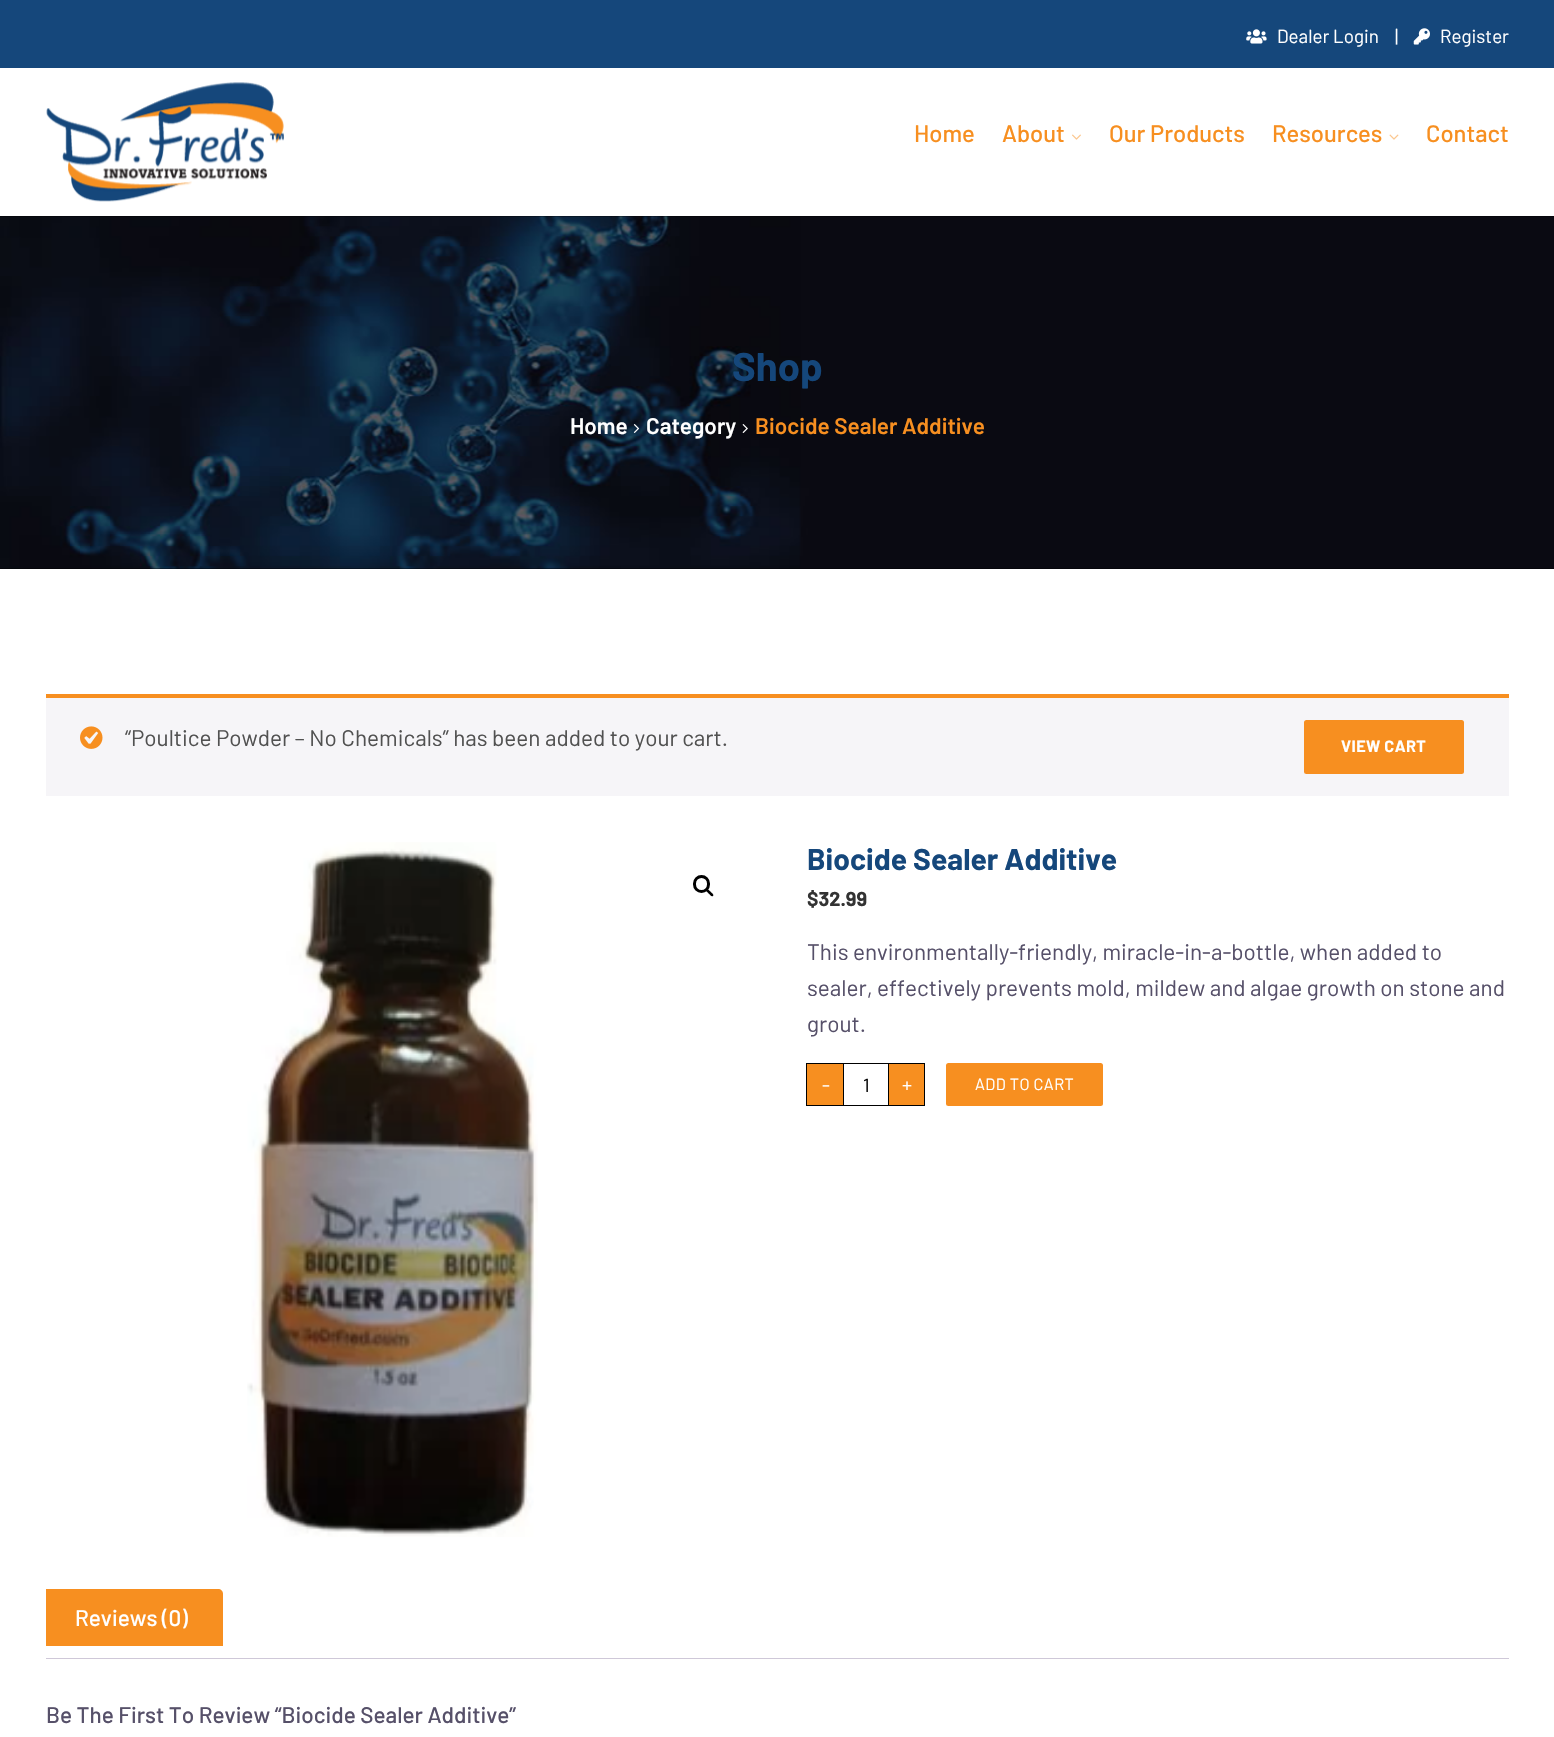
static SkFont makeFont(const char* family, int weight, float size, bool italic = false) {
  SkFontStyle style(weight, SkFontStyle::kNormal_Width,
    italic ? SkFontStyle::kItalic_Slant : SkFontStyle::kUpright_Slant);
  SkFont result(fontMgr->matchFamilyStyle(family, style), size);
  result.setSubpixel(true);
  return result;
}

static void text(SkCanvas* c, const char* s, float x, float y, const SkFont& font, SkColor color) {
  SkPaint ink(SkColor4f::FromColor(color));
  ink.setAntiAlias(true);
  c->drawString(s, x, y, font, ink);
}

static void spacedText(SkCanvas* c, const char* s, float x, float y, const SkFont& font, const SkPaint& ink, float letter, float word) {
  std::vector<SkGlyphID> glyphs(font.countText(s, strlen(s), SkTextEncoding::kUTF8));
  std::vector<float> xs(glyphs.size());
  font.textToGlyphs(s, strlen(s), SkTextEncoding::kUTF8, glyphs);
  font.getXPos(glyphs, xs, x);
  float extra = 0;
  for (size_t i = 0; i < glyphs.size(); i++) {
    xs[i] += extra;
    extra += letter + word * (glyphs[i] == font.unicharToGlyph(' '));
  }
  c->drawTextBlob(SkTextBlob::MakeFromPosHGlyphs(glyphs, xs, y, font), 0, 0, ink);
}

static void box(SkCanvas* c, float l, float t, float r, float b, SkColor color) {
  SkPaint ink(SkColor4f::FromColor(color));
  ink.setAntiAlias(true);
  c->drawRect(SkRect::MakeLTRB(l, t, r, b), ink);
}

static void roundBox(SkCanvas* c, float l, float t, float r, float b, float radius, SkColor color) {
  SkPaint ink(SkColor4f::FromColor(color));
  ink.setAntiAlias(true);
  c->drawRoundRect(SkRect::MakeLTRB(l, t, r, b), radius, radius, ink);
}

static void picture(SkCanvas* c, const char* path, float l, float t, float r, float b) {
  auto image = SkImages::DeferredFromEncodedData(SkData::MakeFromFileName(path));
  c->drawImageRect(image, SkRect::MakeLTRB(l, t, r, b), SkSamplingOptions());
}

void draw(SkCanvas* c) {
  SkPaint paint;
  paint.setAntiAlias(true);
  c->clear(0xffffffff);
  box(c, 0, 0, 1554, 68, 0xff15477b);
  picture(c, "img_01.png", 1246, 29, 1267, 44);
  SkFont face1 = makeFont("Barlow", 400, 18.75f);
  text(c, "Dealer Login", 1277, 43, face1, 0xffffffff);
  text(c, "|", 1395, 43, face1, 0xffffffff);
  picture(c, "img_02.png", 1413, 28, 1430, 45);
  text(c, "Register", 1440, 43, face1, 0xffffffff);
  picture(c, "img_03.png", 46, 82, 284, 202);
  SkFont face2 = makeFont("Barlow", 500, 23.75f);
  text(c, "Home", 914, 142, face2, 0xfff78f20);
  text(c, "About", 1002, 142, face2, 0xfff78f20);
  picture(c, "img_04.png", 1072, 134, 1081, 140);
  text(c, "Our Products", 1109, 142, face2, 0xfff78f20);
  text(c, "Resources", 1272, 142, face2, 0xfff78f20);
  picture(c, "img_05.png", 1389, 134, 1399, 140);
  text(c, "Contact", 1426, 142, face2, 0xfff78f20);
  box(c, 0, 216, 1554, 569, 0xff000000);
  picture(c, "img_06.png", 0, 216, 1554, 569);
  SkFont face3 = makeFont("Barlow", 700, 40);
  text(c, "Shop", 732, 381, face3, 0xff15477b);
  SkFont face4 = makeFont("Barlow", 600, 22.5f);
  text(c, "Home", 570, 434, face4, 0xffffffff);
  picture(c, "img_07.png", 633, 424, 640, 433);
  text(c, "Category", 646, 434, face4, 0xffffffff);
  picture(c, "img_08.png", 742, 424, 748, 433);
  text(c, "Biocide Sealer Additive", 755, 434, face4, 0xfff78f20);
  box(c, 46, 698, 1509, 796, 0xfff6f5f8);
  box(c, 46, 694, 1509, 698, 0xfff78f20);
  picture(c, "img_09.png", 80, 726, 103, 749);
  SkFont face5 = makeFont("Barlow", 400, 22.5f);
  text(c, "“Poultice Powder – No Chemicals” has been added to your cart.", 125, 746, face5, 0xff515151);
  roundBox(c, 1304, 720, 1464, 774, 2.5f, 0xfff78f20);
  SkFont face6 = makeFont("Barlow", 700, 16.25f);
  paint.setColor(0xffffffff);
  spacedText(c, "VIEW CART", 1341, 752, face6, paint, 0.4f, 0);
  picture(c, "img_10.png", 247, 842, 538, 1537);
  paint.setStyle(SkPaint::kStroke_Style);
  paint.setStrokeWidth(3);
  paint.setColor(0xff000000);
  c->drawRoundRect(SkRect::MakeLTRB(694.5f, 876.5f, 708.5f, 891.5f), 7, 7, paint);
  paint.setStyle(SkPaint::kFill_Style);
  c->drawPath(SkPathBuilder().moveTo(706, 889).cubicTo(707.5f, 887.5f, 709.5f, 891, 710.5f, 891.5f).cubicTo(711, 892.5f, 714.5f, 894.5f, 713, 896).cubicTo(711.5f, 897.5f, 709.5f, 894, 708.5f, 893.5f).cubicTo(708, 892.5f, 704.5f, 890.5f, 706, 889).close().detach(), paint);
  SkFont face7 = makeFont("Barlow", 700, 30);
  text(c, "Biocide Sealer Additive", 807, 870, face7, 0xff15477b);
  SkFont face8 = makeFont("Barlow", 700, 20);
  text(c, "$32.99", 807, 906, face8, 0xff333333);
  text(c, "This environmentally-friendly, miracle-in-a-bottle, when added to", 807, 960, face5, 0xff565069);
  text(c, "sealer, effectively prevents mold, mildew and algae growth on stone and", 807, 996, face5, 0xff565069);
  text(c, "grout.", 807, 1032, face5, 0xff565069);
  paint.setColor(0xfff78f20);
  c->drawRect(SkRect::MakeLTRB(806.5f, 1063.5f, 843.5f, 1105.5f), paint);
  paint.setStyle(SkPaint::kStroke_Style);
  paint.setStrokeWidth(1);
  paint.setColor(0xff000000);
  c->drawRect(SkRect::MakeLTRB(806.5f, 1063.5f, 843.5f, 1105.5f), paint);
  SkFont face9 = makeFont("Barlow", 400, 20);
  text(c, "-", 822, 1092, face9, 0xffffffff);
  box(c, 844, 1063, 888, 1064, 0xff000000);
  box(c, 844, 1105, 888, 1106, 0xff000000);
  text(c, "1", 863, 1092, face1, 0xff000000);
  paint.setStyle(SkPaint::kFill_Style);
  paint.setColor(0xfff78f20);
  c->drawRect(SkRect::MakeLTRB(888.5f, 1063.5f, 924.5f, 1105.5f), paint);
  paint.setStyle(SkPaint::kStroke_Style);
  paint.setColor(0xff000000);
  c->drawRect(SkRect::MakeLTRB(888.5f, 1063.5f, 924.5f, 1105.5f), paint);
  text(c, "+", 902, 1092, face9, 0xffffffff);
  roundBox(c, 946, 1063, 1103, 1106, 2.5f, 0xfff78f20);
  SkFont face10 = makeFont("Barlow", 400, 16.25f);
  paint.setStyle(SkPaint::kFill_Style);
  paint.setColor(0xffffffff);
  spacedText(c, "ADD TO CART", 975, 1090, face10, paint, 0.4f, 0);
  paint.setColor(0xfff78f20);
  c->drawPath(SkPathBuilder().moveTo(46, 1589).lineTo(218, 1589).cubicTo(221, 1589, 223, 1591, 223, 1594).lineTo(223, 1646).lineTo(46, 1646).close().detach(), paint);
  SkFont face11 = makeFont("Barlow", 500, 22.5f);
  text(c, "Reviews (0)", 75, 1626, face11, 0xffffffff);
  box(c, 46, 1658, 1509, 1659, 0xffcfc8d8);
  text(c, "Be The First To Review “Biocide Sealer Additive”", 46, 1723, face11, 0xff565069);
}
